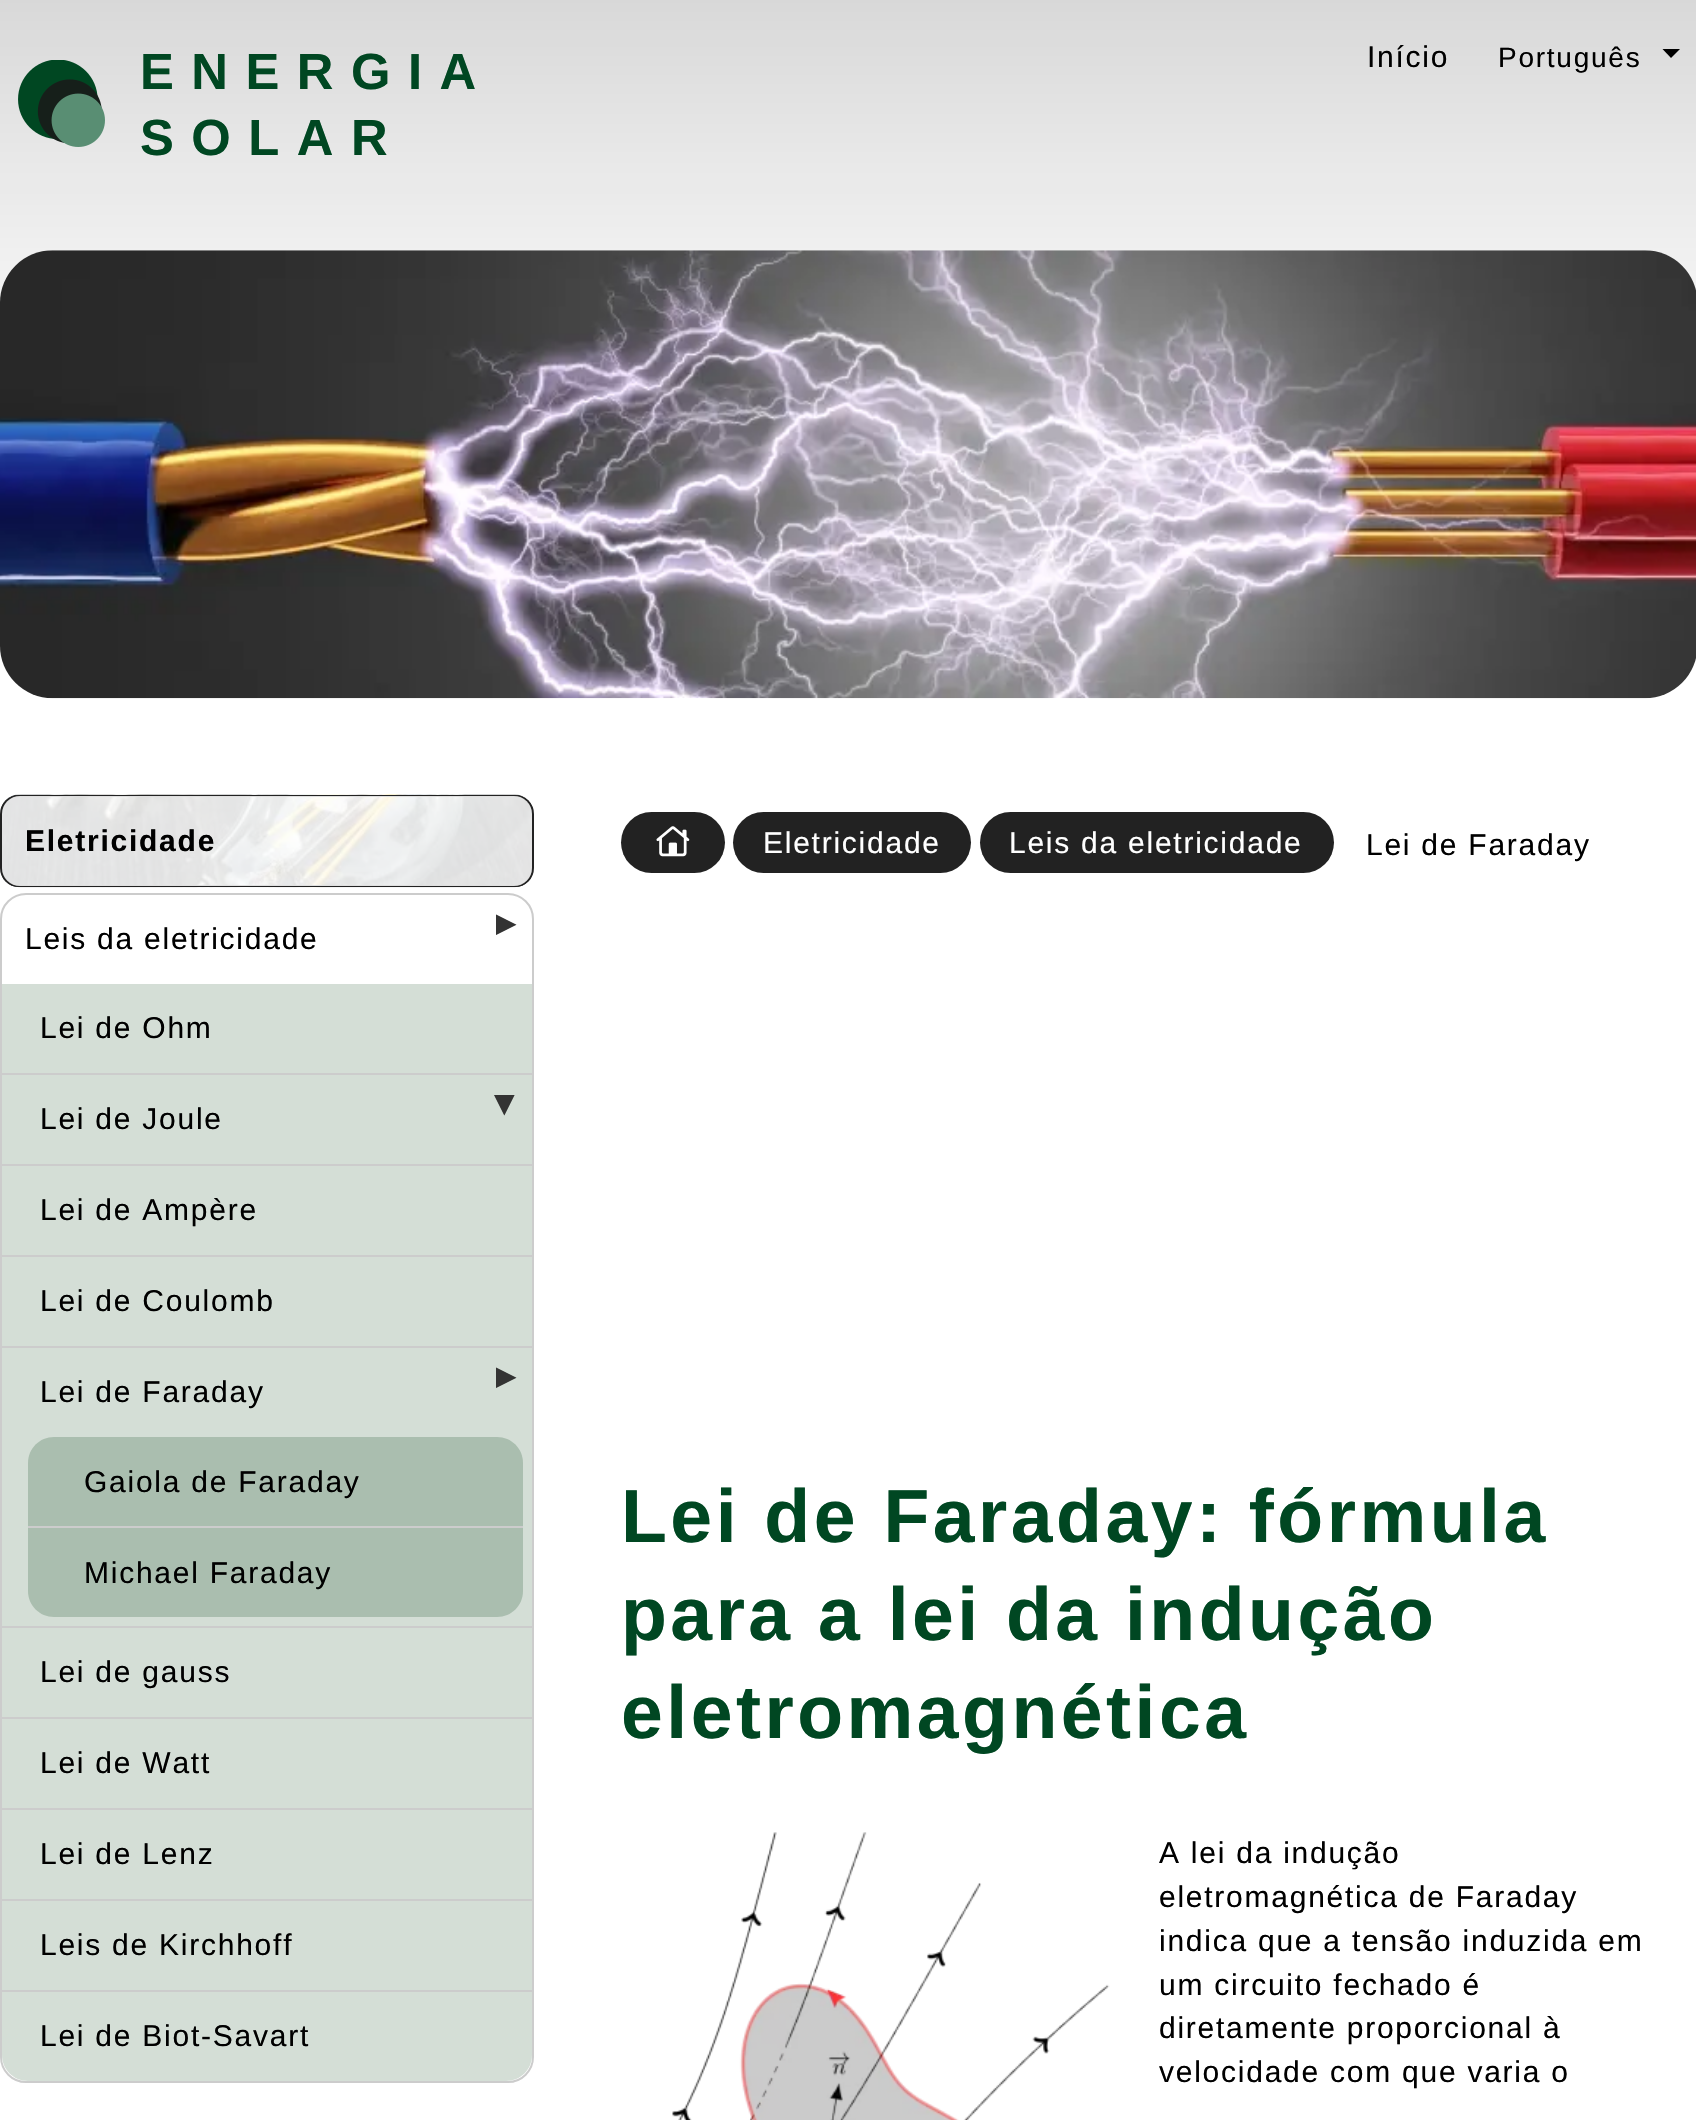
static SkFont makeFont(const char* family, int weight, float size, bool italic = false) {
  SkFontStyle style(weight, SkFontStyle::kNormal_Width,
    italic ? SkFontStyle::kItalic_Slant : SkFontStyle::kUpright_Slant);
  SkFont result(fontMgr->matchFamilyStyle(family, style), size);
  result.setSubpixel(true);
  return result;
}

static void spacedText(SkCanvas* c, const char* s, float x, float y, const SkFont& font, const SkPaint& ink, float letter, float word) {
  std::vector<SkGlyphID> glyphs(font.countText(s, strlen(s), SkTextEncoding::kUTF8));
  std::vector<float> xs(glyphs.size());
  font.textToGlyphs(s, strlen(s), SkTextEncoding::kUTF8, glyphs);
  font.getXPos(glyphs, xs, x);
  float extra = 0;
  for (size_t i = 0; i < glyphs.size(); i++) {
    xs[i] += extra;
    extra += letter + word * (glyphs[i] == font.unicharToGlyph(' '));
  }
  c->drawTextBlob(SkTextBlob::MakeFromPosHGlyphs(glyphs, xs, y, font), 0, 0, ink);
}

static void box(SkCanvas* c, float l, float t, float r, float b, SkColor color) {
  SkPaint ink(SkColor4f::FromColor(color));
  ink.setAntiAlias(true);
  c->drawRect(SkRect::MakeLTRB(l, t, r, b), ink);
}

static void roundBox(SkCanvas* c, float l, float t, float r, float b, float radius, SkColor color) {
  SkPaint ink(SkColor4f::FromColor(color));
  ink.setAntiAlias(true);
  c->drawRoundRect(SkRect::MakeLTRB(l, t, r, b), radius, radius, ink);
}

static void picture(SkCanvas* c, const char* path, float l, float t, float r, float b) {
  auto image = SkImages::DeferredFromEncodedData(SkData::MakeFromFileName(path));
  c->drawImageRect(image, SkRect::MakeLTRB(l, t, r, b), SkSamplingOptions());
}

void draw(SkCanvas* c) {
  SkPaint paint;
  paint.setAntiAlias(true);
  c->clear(0xffffffff);
  picture(c, "img_01.png", 0, 0, 1696, 302);
  picture(c, "img_02.png", 18, 60, 105, 147);
  SkFont face1 = makeFont("Liberation Sans", 700, 50.75f);
  paint.setColor(0xff004722);
  spacedText(c, "ENERGIA", 140, 89, face1, paint, 17.5f, 0);
  spacedText(c, "SOLAR", 140, 155, face1, paint, 17.5f, 0);
  SkFont face2 = makeFont("Liberation Sans", 400, 30);
  paint.setColor(0xff000000);
  spacedText(c, "Início", 1367, 67, face2, paint, 1.75f, 0);
  SkFont face3 = makeFont("Liberation Sans", 400, 28);
  spacedText(c, "Português", 1498, 67, face3, paint, 1.75f, 0);
  c->drawPath(SkPathBuilder().moveTo(1662.5f, 49).lineTo(1680, 49).lineTo(1671, 58).close().detach(), paint);
  picture(c, "img_03.png", 0, 250, 1696, 699);
  picture(c, "img_04.png", 1, 794, 532, 888);
  paint.setStyle(SkPaint::kStroke_Style);
  paint.setStrokeWidth(2);
  paint.setColor(0xff222222);
  c->drawRoundRect(SkRect::MakeLTRB(1, 796, 533, 886), 18, 18, paint);
  roundBox(c, 2, 796, 532, 886, 18, 0xd9ffffff);
  SkFont face4 = makeFont("Liberation Sans", 700, 30);
  paint.setStyle(SkPaint::kFill_Style);
  paint.setColor(0xff000000);
  spacedText(c, "Eletricidade", 25, 851, face4, paint, 1.75f, 0);
  paint.setStyle(SkPaint::kStroke_Style);
  paint.setColor(0xffcccccc);
  c->drawRoundRect(SkRect::MakeLTRB(1, 894, 533, 2082), 25, 25, paint);
  SkFont face5 = makeFont("Liberation Sans", 400, 35);
  paint.setStyle(SkPaint::kFill_Style);
  paint.setColor(0xff333333);
  c->save();
  c->rotate(-90, 516, 942);
  spacedText(c, "▼", 516, 942, face5, paint, 1.75f, 0);
  c->restore();
  paint.setColor(0xff000000);
  spacedText(c, "Leis da eletricidade", 25, 949, face2, paint, 1.75f, 0);
  box(c, 2, 984, 532, 1073, 0xffd4ded6);
  box(c, 2, 1073, 532, 1075, 0xffcccccc);
  spacedText(c, "Lei de Ohm", 40, 1038, face2, paint, 1.75f, 0);
  box(c, 2, 1075, 532, 1164, 0xffd4ded6);
  box(c, 2, 1164, 532, 1166, 0xffcccccc);
  spacedText(c, "Lei de Joule", 40, 1129, face2, paint, 1.75f, 0);
  paint.setColor(0xff333333);
  spacedText(c, "▼", 487, 1115, face5, paint, 1.75f, 0);
  box(c, 2, 1166, 532, 1255, 0xffd4ded6);
  box(c, 2, 1255, 532, 1257, 0xffcccccc);
  paint.setColor(0xff000000);
  spacedText(c, "Lei de Ampère", 40, 1220, face2, paint, 1.75f, 0);
  box(c, 2, 1257, 532, 1346, 0xffd4ded6);
  box(c, 2, 1346, 532, 1348, 0xffcccccc);
  spacedText(c, "Lei de Coulomb", 40, 1311, face2, paint, 1.75f, 0);
  box(c, 2, 1348, 532, 1626, 0xffd4ded6);
  box(c, 2, 1626, 532, 1628, 0xffcccccc);
  paint.setColor(0xff333333);
  c->save();
  c->rotate(-90, 516, 1395);
  spacedText(c, "▼", 516, 1395, face5, paint, 1.75f, 0);
  c->restore();
  paint.setColor(0xff000000);
  spacedText(c, "Lei de Faraday", 40, 1402, face2, paint, 1.75f, 0);
  paint.setColor(0xffaabeaf);
  c->drawPath(SkPathBuilder().moveTo(54, 1437).lineTo(497, 1437).cubicTo(511.5f, 1437, 523, 1448.5f, 523, 1463).lineTo(523, 1528).lineTo(28, 1528).lineTo(28, 1463).cubicTo(28, 1448.5f, 39.5f, 1437, 54, 1437).close().detach(), paint);
  box(c, 28, 1526, 523, 1528, 0xffcccccc);
  paint.setColor(0xff000000);
  spacedText(c, "Gaiola de Faraday", 84, 1492, face2, paint, 1.75f, 0);
  paint.setColor(0xffaabeaf);
  c->drawPath(SkPathBuilder().moveTo(28, 1528).lineTo(523, 1528).lineTo(523, 1591).cubicTo(523, 1605.5f, 511.5f, 1617, 497, 1617).lineTo(54, 1617).cubicTo(39.5f, 1617, 28, 1605.5f, 28, 1591).close().detach(), paint);
  paint.setColor(0xff000000);
  spacedText(c, "Michael Faraday", 84, 1583, face2, paint, 1.75f, 0);
  box(c, 2, 1628, 532, 1717, 0xffd4ded6);
  box(c, 2, 1717, 532, 1719, 0xffcccccc);
  spacedText(c, "Lei de gauss", 40, 1682, face2, paint, 1.75f, 0);
  box(c, 2, 1719, 532, 1808, 0xffd4ded6);
  box(c, 2, 1808, 532, 1810, 0xffcccccc);
  spacedText(c, "Lei de Watt", 40, 1773, face2, paint, 1.75f, 0);
  box(c, 2, 1810, 532, 1899, 0xffd4ded6);
  box(c, 2, 1899, 532, 1901, 0xffcccccc);
  spacedText(c, "Lei de Lenz", 40, 1864, face2, paint, 1.75f, 0);
  box(c, 2, 1901, 532, 1990, 0xffd4ded6);
  box(c, 2, 1990, 532, 1992, 0xffcccccc);
  spacedText(c, "Leis de Kirchhoff", 40, 1955, face2, paint, 1.75f, 0);
  paint.setColor(0xffd4ded6);
  c->drawPath(SkPathBuilder().moveTo(2, 1992).lineTo(532, 1992).lineTo(532, 2055).cubicTo(532, 2069.5f, 520.5f, 2081, 506, 2081).lineTo(28, 2081).cubicTo(13.5f, 2081, 2, 2069.5f, 2, 2055).close().detach(), paint);
  paint.setColor(0xff000000);
  spacedText(c, "Lei de Biot-Savart", 40, 2046, face2, paint, 1.75f, 0);
  roundBox(c, 621, 812, 725, 873, 30.5f, 0xff222222);
  picture(c, "img_05.png", 656, 826, 690, 857);
  roundBox(c, 733, 812, 971, 873, 30.5f, 0xff222222);
  paint.setColor(0xffffffff);
  spacedText(c, "Eletricidade", 763, 853, face2, paint, 1.75f, 0);
  roundBox(c, 980, 812, 1334, 873, 30.5f, 0xff222222);
  spacedText(c, "Leis da eletricidade", 1009, 853, face2, paint, 1.75f, 0);
  paint.setColor(0xff000000);
  spacedText(c, "Lei de Faraday", 1366, 855, face2, paint, 1.75f, 0);
  SkFont face6 = makeFont("Liberation Sans", 700, 75.1f);
  paint.setColor(0xff004722);
  spacedText(c, "Lei de Faraday: fórmula", 621, 1542, face6, paint, 3.5f, 0);
  spacedText(c, "para a lei da indução", 621, 1640, face6, paint, 3.5f, 0);
  spacedText(c, "eletromagnética", 621, 1738, face6, paint, 3.5f, 0);
  picture(c, "img_06.png", 672, 1832, 1110, 2120);
  paint.setColor(0xff000000);
  spacedText(c, "A lei da indução", 1159, 1863, face2, paint, 1.75f, 0);
  spacedText(c, "eletromagnética de Faraday", 1159, 1907, face2, paint, 1.75f, 0);
  spacedText(c, "indica que a tensão induzida em", 1159, 1951, face2, paint, 1.75f, 0);
  spacedText(c, "um circuito fechado é", 1159, 1995, face2, paint, 1.75f, 0);
  spacedText(c, "diretamente proporcional à", 1159, 2038, face2, paint, 1.75f, 0);
  spacedText(c, "velocidade com que varia o", 1159, 2082, face2, paint, 1.75f, 0);
}
